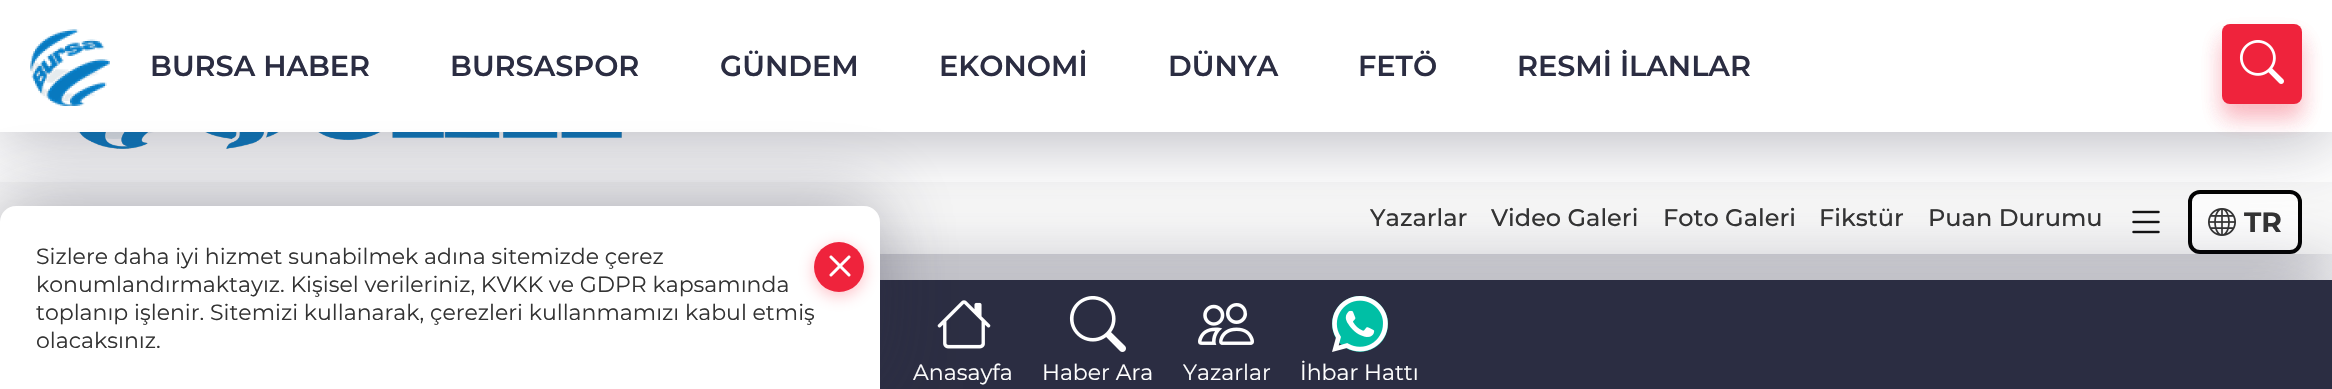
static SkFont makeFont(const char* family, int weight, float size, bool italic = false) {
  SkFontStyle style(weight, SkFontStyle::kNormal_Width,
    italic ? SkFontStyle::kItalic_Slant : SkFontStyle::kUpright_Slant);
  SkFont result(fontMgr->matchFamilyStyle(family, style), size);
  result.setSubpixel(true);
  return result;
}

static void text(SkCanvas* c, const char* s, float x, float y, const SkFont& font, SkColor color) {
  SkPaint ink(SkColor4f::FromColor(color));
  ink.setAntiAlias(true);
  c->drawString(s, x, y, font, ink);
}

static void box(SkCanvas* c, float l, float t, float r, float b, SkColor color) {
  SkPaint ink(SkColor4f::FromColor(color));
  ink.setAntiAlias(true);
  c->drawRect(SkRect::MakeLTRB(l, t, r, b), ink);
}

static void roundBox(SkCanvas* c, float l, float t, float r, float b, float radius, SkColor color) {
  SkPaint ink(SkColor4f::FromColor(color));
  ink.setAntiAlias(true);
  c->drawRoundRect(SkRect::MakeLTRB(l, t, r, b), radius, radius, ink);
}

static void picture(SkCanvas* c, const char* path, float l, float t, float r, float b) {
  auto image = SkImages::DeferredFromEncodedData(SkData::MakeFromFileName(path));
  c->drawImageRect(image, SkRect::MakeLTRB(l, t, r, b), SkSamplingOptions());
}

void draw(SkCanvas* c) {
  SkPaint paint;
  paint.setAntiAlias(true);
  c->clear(0xffffffff);
  paint.setColor(0x5c2b2d42);
  paint.setMaskFilter(SkMaskFilter::MakeBlur(kNormal_SkBlurStyle, 38));
  c->drawRect(SkRect::MakeLTRB(0, -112, 2332, 260), paint);
  paint.setMaskFilter(nullptr);
  box(c, 0, 132, 2332, 182, 0xffffffff);
  picture(c, "img_03.png", 77, 132, 622, 149);
  box(c, 0, 182, 2332, 254, 0xfff8f8f8);
  picture(c, "img_04.png", 2132, 210, 2160, 234);
  paint.setColor(0xffffffff);
  c->drawRoundRect(SkRect::MakeLTRB(2190, 192, 2300, 252), 10, 10, paint);
  paint.setStyle(SkPaint::kStroke_Style);
  paint.setStrokeWidth(4);
  paint.setColor(0xff000000);
  c->drawRoundRect(SkRect::MakeLTRB(2190, 192, 2300, 252), 10, 10, paint);
  picture(c, "img_05.png", 2208, 208, 2236, 236);
  paint.setStyle(SkPaint::kFill_Style);
  paint.setColor(0x5c2b2d42);
  paint.setMaskFilter(SkMaskFilter::MakeBlur(kNormal_SkBlurStyle, 38));
  c->drawRect(SkRect::MakeLTRB(0, 6, 2332, 138), paint);
  paint.setMaskFilter(nullptr);
  box(c, 0, 0, 2332, 132, 0xffffffff);
  picture(c, "img_01.png", 30, 29, 110, 106);
  SkFont face1 = makeFont("Montserrat", 600, 28.75f);
  text(c, "BURSA HABER", 150, 76, face1, 0xff2b2d42);
  text(c, "BURSASPOR", 450, 76, face1, 0xff2b2d42);
  text(c, "GÜNDEM", 720, 76, face1, 0xff2b2d42);
  text(c, "EKONOMİ", 939, 76, face1, 0xff2b2d42);
  text(c, "DÜNYA", 1168, 76, face1, 0xff2b2d42);
  text(c, "FETÖ", 1358, 76, face1, 0xff2b2d42);
  text(c, "RESMİ İLANLAR", 1517, 76, face1, 0xff2b2d42);
  paint.setColor(0x2eef233c);
  paint.setMaskFilter(SkMaskFilter::MakeBlur(kNormal_SkBlurStyle, 11));
  c->drawRoundRect(SkRect::MakeLTRB(2222, 38, 2302, 118), 8, 8, paint);
  paint.setMaskFilter(nullptr);
  paint.setMaskFilter(SkMaskFilter::MakeBlur(kNormal_SkBlurStyle, 11));
  c->drawRoundRect(SkRect::MakeLTRB(2222, 38, 2302, 118), 8, 8, paint);
  paint.setMaskFilter(nullptr);
  roundBox(c, 2222, 24, 2302, 104, 8, 0xffef233c);
  picture(c, "img_02.png", 2239, 40, 2284, 84);
  SkFont face2 = makeFont("Montserrat", 500, 24);
  text(c, "Yazarlar", 1370, 226, face2, 0xff333333);
  text(c, "Video Galeri", 1491, 226, face2, 0xff333333);
  text(c, "Foto Galeri", 1663, 226, face2, 0xff333333);
  text(c, "Fikstür", 1819, 226, face2, 0xff333333);
  text(c, "Puan Durumu", 1928, 226, face2, 0xff333333);
  SkFont face3 = makeFont("Montserrat", 700, 28);
  text(c, "TR", 2244, 232, face3, 0xff333333);
  paint.setColor(0x5c2b2d42);
  paint.setMaskFilter(SkMaskFilter::MakeBlur(kNormal_SkBlurStyle, 38));
  c->drawRect(SkRect::MakeLTRB(0, 274, 2332, 384), paint);
  paint.setMaskFilter(nullptr);
  box(c, 880, 280, 2332, 389, 0xff2b2d42);
  picture(c, "img_06.png", 937, 300, 991, 349);
  SkFont face4 = makeFont("Montserrat", 400, 22);
  text(c, "Anasayfa", 913, 380, face4, 0xffffffff);
  picture(c, "img_07.png", 1069, 296, 1126, 352);
  text(c, "Haber Ara", 1042, 380, face4, 0xffffffff);
  picture(c, "img_08.png", 1198, 303, 1254, 345);
  text(c, "Yazarlar", 1183, 380, face4, 0xffffffff);
  paint.setColor(0xff00bfa5);
  c->drawCircle(1360, 324, 28, paint);
  picture(c, "img_09.png", 1332, 296, 1388, 352);
  text(c, "İhbar Hattı", 1300, 380, face4, 0xffffffff);
  paint.setColor(0x5c2b2d42);
  paint.setMaskFilter(SkMaskFilter::MakeBlur(kNormal_SkBlurStyle, 38));
  c->drawRoundRect(SkRect::MakeLTRB(0, 200, 880, 384), 16, 16, paint);
  paint.setMaskFilter(nullptr);
  paint.setColor(0xffffffff);
  c->drawPath(SkPathBuilder().moveTo(16, 206).lineTo(864, 206).cubicTo(873, 206, 880, 213, 880, 222).lineTo(880, 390).lineTo(0, 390).lineTo(0, 222).cubicTo(0, 213, 7, 206, 16, 206).close().detach(), paint);
  text(c, "Sizlere daha iyi hizmet sunabilmek adına sitemizde çerez", 36, 264, face4, 0xff333333);
  paint.setColor(0x61ff566a);
  paint.setMaskFilter(SkMaskFilter::MakeBlur(kNormal_SkBlurStyle, 8));
  c->drawRoundRect(SkRect::MakeLTRB(814, 246, 864, 296), 25, 25, paint);
  paint.setMaskFilter(nullptr);
  paint.setColor(0xffef233c);
  c->drawCircle(839, 267, 25, paint);
  picture(c, "img_10.png", 829, 255, 851, 277);
  text(c, "konumlandırmaktayız. Kişisel verileriniz, KVKK ve GDPR kapsamında", 36, 292, face4, 0xff333333);
  text(c, "toplanıp işlenir. Sitemizi kullanarak, çerezleri kullanmamızı kabul etmiş", 36, 320, face4, 0xff333333);
  text(c, "olacaksınız.", 36, 348, face4, 0xff333333);
}
